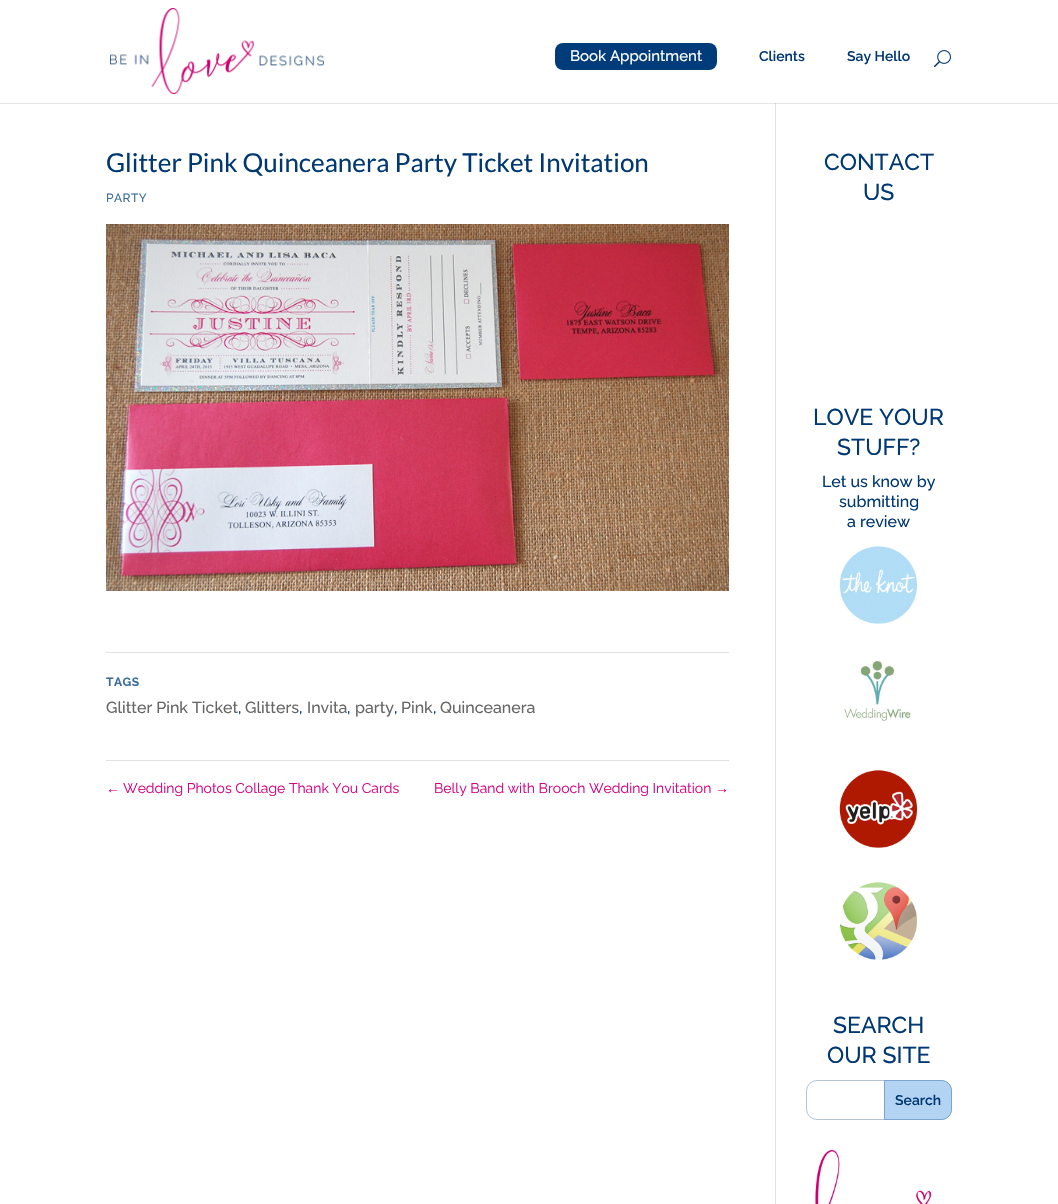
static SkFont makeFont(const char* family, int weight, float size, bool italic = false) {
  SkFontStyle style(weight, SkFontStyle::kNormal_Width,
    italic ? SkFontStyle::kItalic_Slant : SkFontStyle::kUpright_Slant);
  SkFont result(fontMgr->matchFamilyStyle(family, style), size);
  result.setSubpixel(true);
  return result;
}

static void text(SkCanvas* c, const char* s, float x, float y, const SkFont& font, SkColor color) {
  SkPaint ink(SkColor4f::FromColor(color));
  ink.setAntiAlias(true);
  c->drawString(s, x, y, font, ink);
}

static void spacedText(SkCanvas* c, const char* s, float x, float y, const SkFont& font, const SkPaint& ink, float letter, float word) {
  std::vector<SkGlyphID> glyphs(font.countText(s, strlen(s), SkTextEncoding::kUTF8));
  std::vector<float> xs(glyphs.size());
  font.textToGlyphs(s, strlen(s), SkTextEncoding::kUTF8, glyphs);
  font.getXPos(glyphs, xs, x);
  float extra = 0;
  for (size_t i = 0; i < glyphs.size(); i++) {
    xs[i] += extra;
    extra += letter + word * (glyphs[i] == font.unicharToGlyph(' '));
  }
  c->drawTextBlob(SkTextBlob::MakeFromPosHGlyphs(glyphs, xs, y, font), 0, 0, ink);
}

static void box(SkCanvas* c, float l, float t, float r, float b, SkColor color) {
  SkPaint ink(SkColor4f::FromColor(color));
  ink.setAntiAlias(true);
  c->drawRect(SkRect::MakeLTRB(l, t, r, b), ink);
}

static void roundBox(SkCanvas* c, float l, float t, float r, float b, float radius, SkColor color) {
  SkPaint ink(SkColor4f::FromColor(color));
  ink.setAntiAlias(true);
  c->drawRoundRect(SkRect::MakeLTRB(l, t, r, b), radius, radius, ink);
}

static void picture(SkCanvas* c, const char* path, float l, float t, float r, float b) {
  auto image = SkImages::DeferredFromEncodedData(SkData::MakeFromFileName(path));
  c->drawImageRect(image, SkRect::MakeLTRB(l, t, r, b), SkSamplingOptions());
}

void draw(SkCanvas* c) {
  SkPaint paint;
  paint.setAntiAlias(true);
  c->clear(0xffffffff);
  box(c, 0, 103, 1058, 104, 0xffe6e6e6);
  picture(c, "img_01.png", 110, 8, 324, 94);
  roundBox(c, 555, 43, 717, 70, 8, 0xff003b7a);
  SkFont face1 = makeFont("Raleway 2", 100, 15);
  text(c, "Book Appointment", 570, 61, face1, 0xffffffff);
  SkFont face2 = makeFont("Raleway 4", 100, 14);
  text(c, "Clients", 759, 61, face2, 0xff003873);
  text(c, "Say Hello", 847, 61, face2, 0xff003873);
  picture(c, "img_02.png", 934, 50, 951, 68);
  box(c, 775, 104, 776, 1204, 0xffe2e2e2);
  box(c, 775, 103, 776, 104, 0xffcbcbcb);
  SkFont face3 = makeFont("Lato", 400, 26);
  text(c, "Glitter Pink Quinceanera Party Ticket Invitation", 106, 172, face3, 0xff003873);
  SkFont face4 = makeFont("Raleway 2", 100, 12);
  paint.setColor(0xff3c6d9b);
  spacedText(c, "PARTY", 106, 202, face4, paint, 0.5f, 0);
  picture(c, "img_03.png", 106, 224, 729, 591);
  box(c, 106, 652, 729, 653, 0xffe2e2e2);
  box(c, 106, 760, 729, 761, 0xffe2e2e2);
  SkFont face5 = makeFont("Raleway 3", 100, 12);
  spacedText(c, "TAGS", 106, 686, face5, paint, 0.5f, 0);
  SkFont face6 = makeFont("Raleway 2", 100, 16);
  text(c, "Glitter Pink Ticket", 106, 713, face6, 0xff666666);
  text(c, ",", 238, 713, face6, 0xff003873);
  text(c, "Glitters", 245, 713, face6, 0xff666666);
  text(c, ",", 299, 713, face6, 0xff003873);
  text(c, "Invita", 307, 713, face6, 0xff666666);
  text(c, ",", 347, 713, face6, 0xff003873);
  text(c, "party", 355, 713, face6, 0xff666666);
  text(c, ",", 394, 713, face6, 0xff003873);
  text(c, "Pink", 401, 713, face6, 0xff666666);
  text(c, ",", 433, 713, face6, 0xff003873);
  text(c, "Quinceanera", 440, 713, face6, 0xff666666);
  SkFont face7 = makeFont("Liberation Sans", 400, 14);
  text(c, "←", 106, 793, face7, 0xffd60080);
  SkFont face8 = makeFont("Raleway", 100, 14);
  text(c, "Wedding Photos Collage Thank You Cards", 123, 793, face8, 0xffd60080);
  text(c, "Belly Band with Brooch Wedding Invitation", 434, 793, face8, 0xffd60080);
  text(c, "→", 715, 793, face7, 0xffd60080);
  SkFont face9 = makeFont("Raleway 2", 100, 23);
  text(c, "CONTACT", 824, 170, face9, 0xff003873);
  text(c, "US", 863, 200, face9, 0xff003873);
  text(c, "LOVE YOUR", 813, 425, face9, 0xff003873);
  text(c, "STUFF?", 837, 455, face9, 0xff003873);
  text(c, "Let us know by", 822, 487, face6, 0xff003873);
  text(c, "submitting", 839, 507, face6, 0xff003873);
  text(c, "a review", 847, 527, face6, 0xff003873);
  picture(c, "img_04.png", 839, 546, 917, 624);
  picture(c, "img_05.png", 844, 660, 912, 722);
  picture(c, "img_06.png", 839, 770, 917, 848);
  picture(c, "img_07.png", 840, 882, 917, 960);
  text(c, "SEARCH", 833, 1033, face9, 0xff003873);
  text(c, "OUR SITE", 827, 1063, face9, 0xff003873);
  paint.setStyle(SkPaint::kStroke_Style);
  paint.setStrokeWidth(1);
  paint.setColor(0xffb3c3d5);
  c->drawRoundRect(SkRect::MakeLTRB(806.5f, 1080.5f, 951.5f, 1119.5f), 10.5f, 10.5f, paint);
  paint.setStyle(SkPaint::kFill_Style);
  paint.setColor(0xffb3d3f2);
  c->drawPath(SkPathBuilder().moveTo(884, 1080).lineTo(941, 1080).cubicTo(947, 1080, 952, 1085, 952, 1091).lineTo(952, 1109).cubicTo(952, 1115, 947, 1120, 941, 1120).lineTo(884, 1120).close().detach(), paint);
  paint.setStyle(SkPaint::kStroke_Style);
  paint.setColor(0x4d003873);
  c->drawPath(SkPathBuilder().moveTo(884.5f, 1080.5f).lineTo(941, 1080.5f).cubicTo(947, 1080.5f, 951.5f, 1085, 951.5f, 1091).lineTo(951.5f, 1109).cubicTo(951.5f, 1115, 947, 1119.5f, 941, 1119.5f).lineTo(884.5f, 1119.5f).close().detach(), paint);
  text(c, "Search", 895, 1105, face2, 0xff003873);
  picture(c, "img_08.png", 815, 1150, 932, 1204);
}
